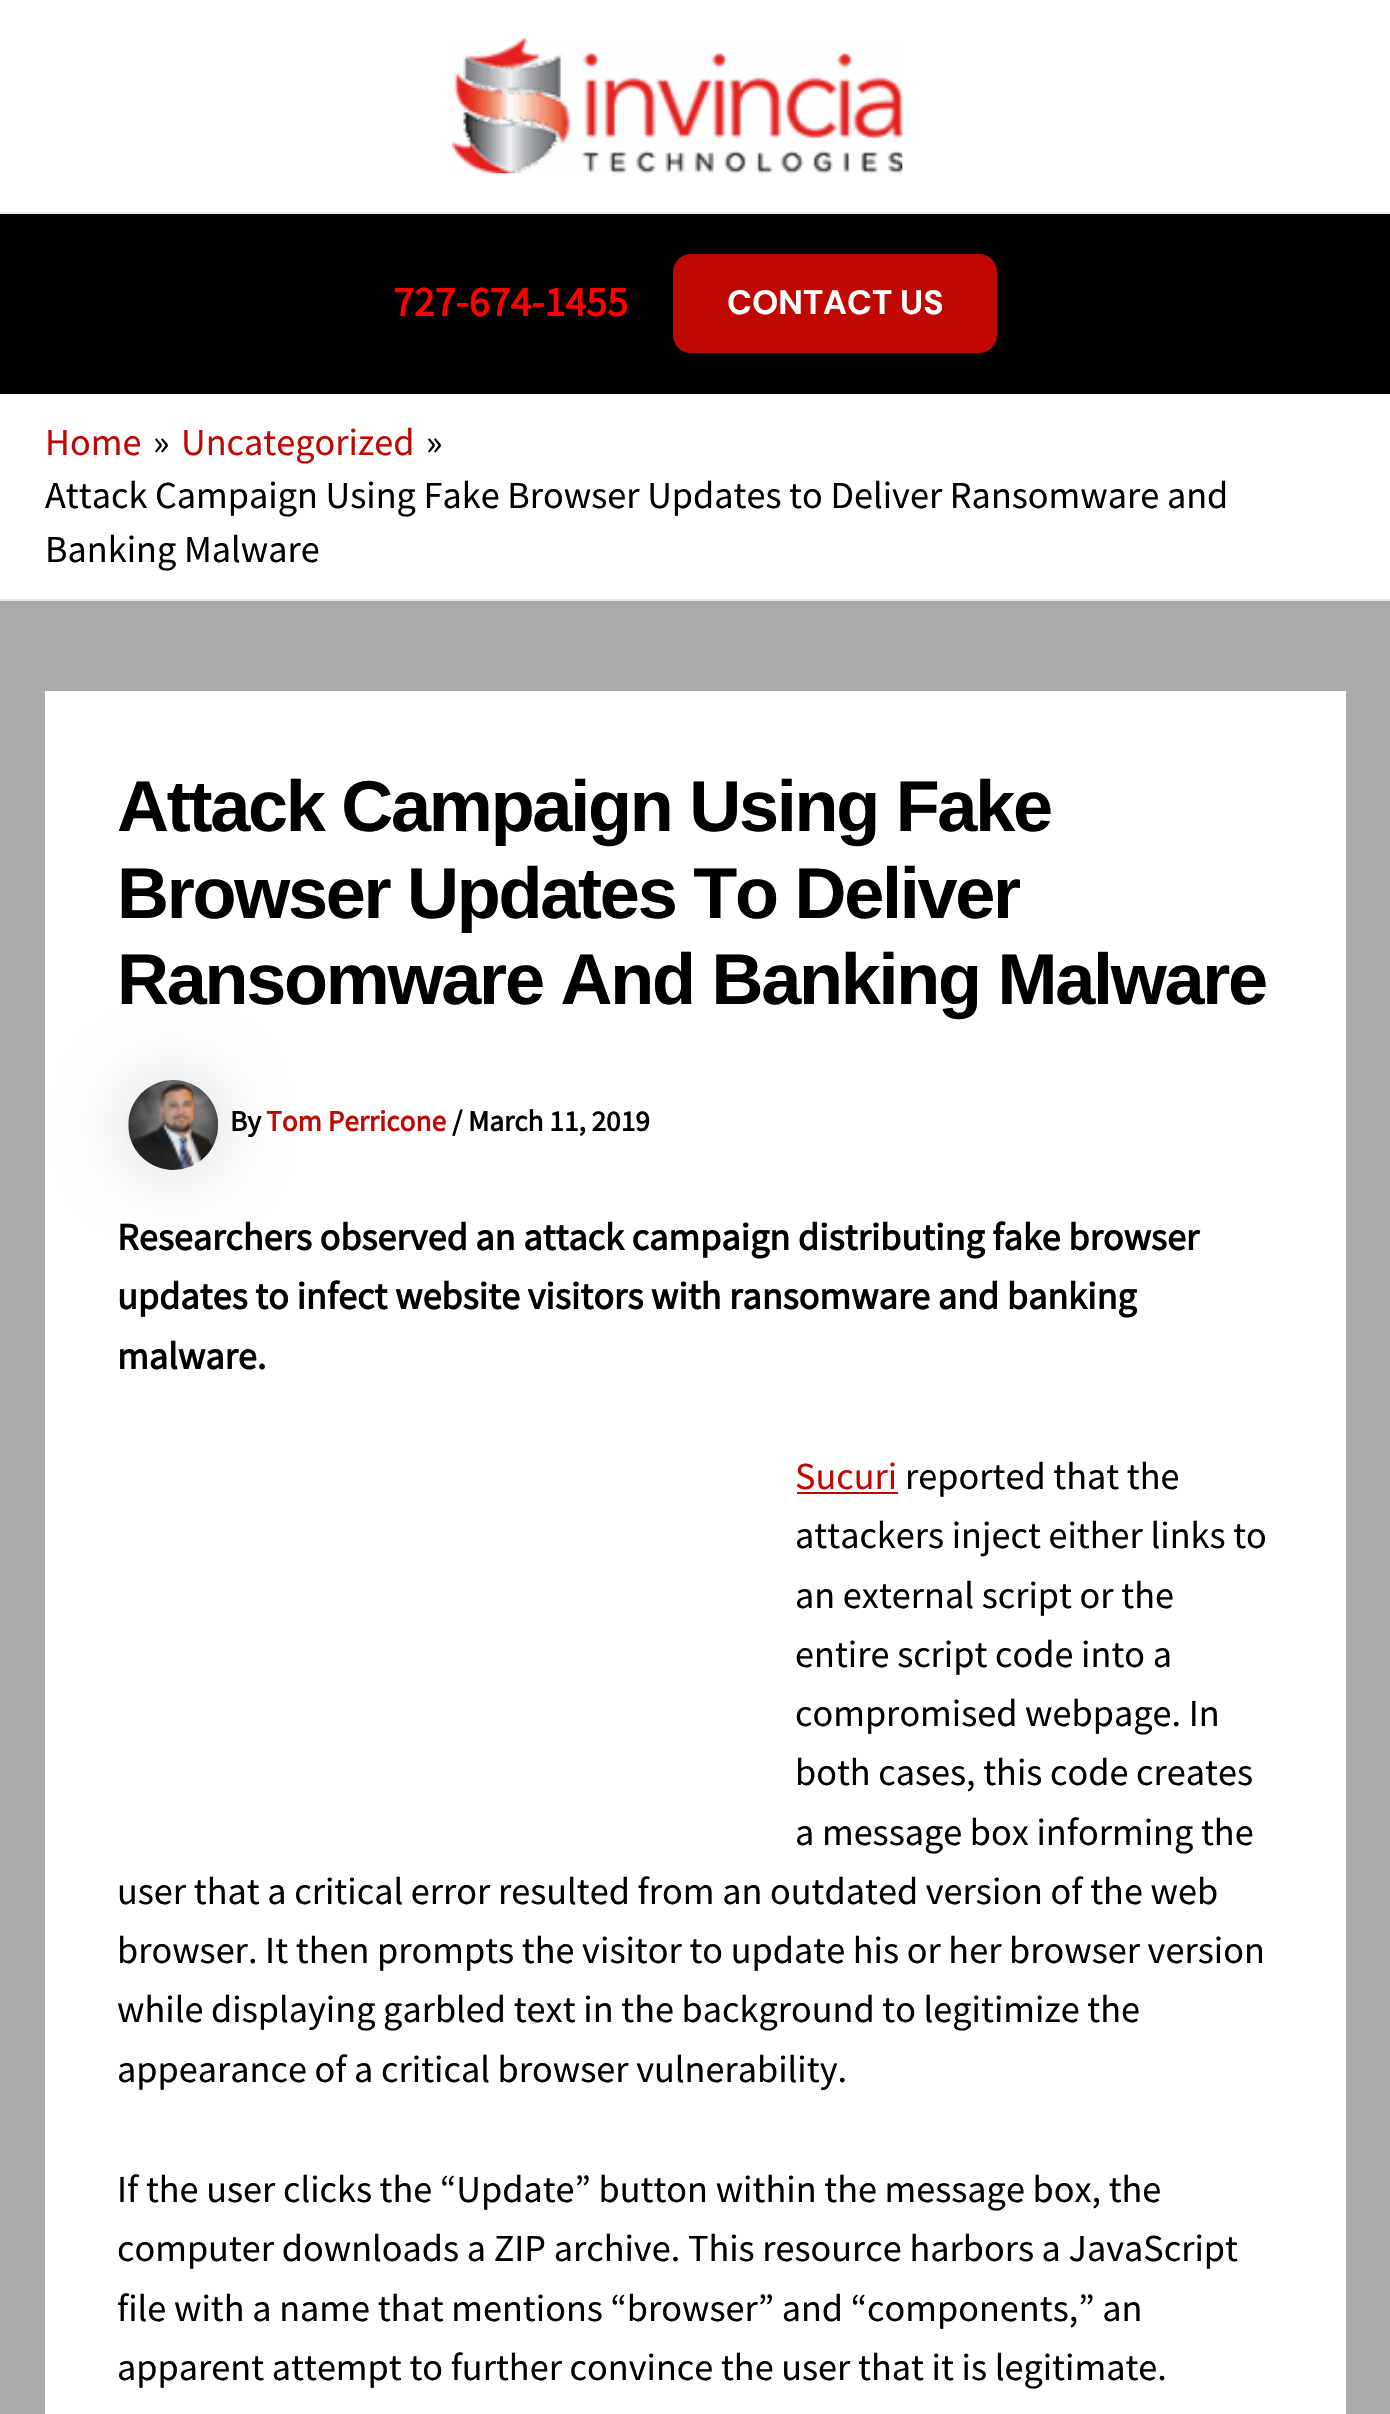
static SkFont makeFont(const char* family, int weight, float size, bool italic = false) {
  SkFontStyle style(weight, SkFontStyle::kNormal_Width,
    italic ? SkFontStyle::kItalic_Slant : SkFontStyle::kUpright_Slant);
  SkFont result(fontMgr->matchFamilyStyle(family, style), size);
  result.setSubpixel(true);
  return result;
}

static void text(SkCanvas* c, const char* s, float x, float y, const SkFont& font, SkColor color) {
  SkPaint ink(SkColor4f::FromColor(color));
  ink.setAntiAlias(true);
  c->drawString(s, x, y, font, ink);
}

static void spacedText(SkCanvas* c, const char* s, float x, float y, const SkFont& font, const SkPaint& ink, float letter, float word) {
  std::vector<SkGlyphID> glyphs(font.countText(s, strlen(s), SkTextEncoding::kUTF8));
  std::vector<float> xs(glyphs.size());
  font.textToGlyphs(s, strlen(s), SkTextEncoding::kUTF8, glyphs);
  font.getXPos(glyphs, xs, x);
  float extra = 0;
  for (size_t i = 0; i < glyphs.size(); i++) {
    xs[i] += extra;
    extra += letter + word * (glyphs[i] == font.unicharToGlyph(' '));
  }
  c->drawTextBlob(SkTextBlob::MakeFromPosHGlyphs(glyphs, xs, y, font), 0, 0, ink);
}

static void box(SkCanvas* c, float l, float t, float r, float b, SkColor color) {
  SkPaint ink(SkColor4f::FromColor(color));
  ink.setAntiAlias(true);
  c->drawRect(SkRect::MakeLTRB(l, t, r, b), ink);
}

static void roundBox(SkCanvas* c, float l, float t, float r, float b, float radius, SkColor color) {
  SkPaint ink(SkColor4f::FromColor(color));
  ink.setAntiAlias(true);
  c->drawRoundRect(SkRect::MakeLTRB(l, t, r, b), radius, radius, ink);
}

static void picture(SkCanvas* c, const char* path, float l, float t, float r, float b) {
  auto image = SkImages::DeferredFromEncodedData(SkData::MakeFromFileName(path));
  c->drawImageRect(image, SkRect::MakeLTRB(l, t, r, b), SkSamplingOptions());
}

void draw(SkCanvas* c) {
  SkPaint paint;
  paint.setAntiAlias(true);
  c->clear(0xffaaaaaa);
  box(c, 0, 0, 1390, 212, 0xffffffff);
  box(c, 0, 212, 1390, 214, 0xffeaeaea);
  picture(c, "img_01.png", 452, 38, 903, 174);
  box(c, 0, 214, 1390, 394, 0xff000000);
  SkFont face1 = makeFont("Source Sans Pro", 700, 42);
  text(c, "727-674-1455", 393, 316, face1, 0xffff0000);
  roundBox(c, 673, 254, 997, 353, 18, 0xffc00802);
  SkFont face2 = makeFont("DM Sans", 700, 33.75f);
  text(c, "CONTACT US", 727, 314, face2, 0xffffffff);
  box(c, 0, 394, 1390, 599, 0xffffffff);
  box(c, 0, 599, 1390, 601, 0xffeaeaea);
  SkFont face3 = makeFont("Source Sans Pro", 400, 38.25f);
  text(c, "Home", 45, 455, face3, 0xffc00802);
  text(c, "»", 153, 455, face3, 0xff000000);
  text(c, "Uncategorized", 181, 455, face3, 0xffc00802);
  text(c, "»", 426, 455, face3, 0xff000000);
  text(c, "Attack Campaign Using Fake Browser Updates to Deliver Ransomware and", 45, 508, face3, 0xff000000);
  text(c, "Banking Malware", 45, 562, face3, 0xff000000);
  box(c, 45, 691, 1346, 2414, 0xffffffff);
  SkFont face4 = makeFont("Liberation Sans", 700, 72);
  paint.setColor(0xff000000);
  spacedText(c, "Attack Campaign Using Fake", 117, 831, face4, paint, -2.25f, 0);
  spacedText(c, "Browser Updates To Deliver", 117, 918, face4, paint, -2.25f, 0);
  spacedText(c, "Ransomware And Banking Malware", 117, 1004, face4, paint, -2.25f, 0);
  paint.setColor(0x26000000);
  paint.setMaskFilter(SkMaskFilter::MakeBlur(kNormal_SkBlurStyle, 34));
  c->drawRoundRect(SkRect::MakeLTRB(128, 1080, 218, 1170), 45, 45, paint);
  paint.setMaskFilter(nullptr);
  picture(c, "img_02.png", 128, 1080, 219, 1170);
  SkFont face5 = makeFont("Source Sans Pro", 700, 29.25f);
  text(c, "By", 230, 1131, face5, 0xff000000);
  text(c, "Tom Perricone", 266, 1131, face5, 0xffc00802);
  text(c, "/ March 11, 2019", 452, 1131, face5, 0xff000000);
  SkFont face6 = makeFont("Source Sans Pro", 700, 38.25f);
  text(c, "Researchers observed an attack campaign distributing fake browser", 117, 1250, face6, 0xff000000);
  text(c, "updates to infect website visitors with ransomware and banking", 117, 1309, face6, 0xff000000);
  text(c, "malware.", 117, 1369, face6, 0xff000000);
  text(c, "Sucuri", 795, 1489, face3, 0xffc00802);
  box(c, 797, 1492, 898, 1494, 0xffc00802);
  text(c, "reported that the", 905, 1489, face3, 0xff000000);
  text(c, "attackers inject either links to", 795, 1548, face3, 0xff000000);
  text(c, "an external script or the", 795, 1608, face3, 0xff000000);
  text(c, "entire script code into a", 795, 1667, face3, 0xff000000);
  text(c, "compromised webpage. In", 795, 1726, face3, 0xff000000);
  text(c, "both cases, this code creates", 795, 1785, face3, 0xff000000);
  text(c, "a message box informing the", 795, 1845, face3, 0xff000000);
  text(c, "user that a critical error resulted from an outdated version of the web", 117, 1904, face3, 0xff000000);
  text(c, "browser. It then prompts the visitor to update his or her browser version", 117, 1963, face3, 0xff000000);
  text(c, "while displaying garbled text in the background to legitimize the", 117, 2022, face3, 0xff000000);
  text(c, "appearance of a critical browser vulnerability.", 117, 2082, face3, 0xff000000);
  text(c, "If the user clicks the “Update” button within the message box, the", 117, 2202, face3, 0xff000000);
  text(c, "computer downloads a ZIP archive. This resource harbors a JavaScript", 117, 2261, face3, 0xff000000);
  text(c, "file with a name that mentions “browser” and “components,” an", 117, 2321, face3, 0xff000000);
  text(c, "apparent attempt to further convince the user that it is legitimate.", 117, 2380, face3, 0xff000000);
}
